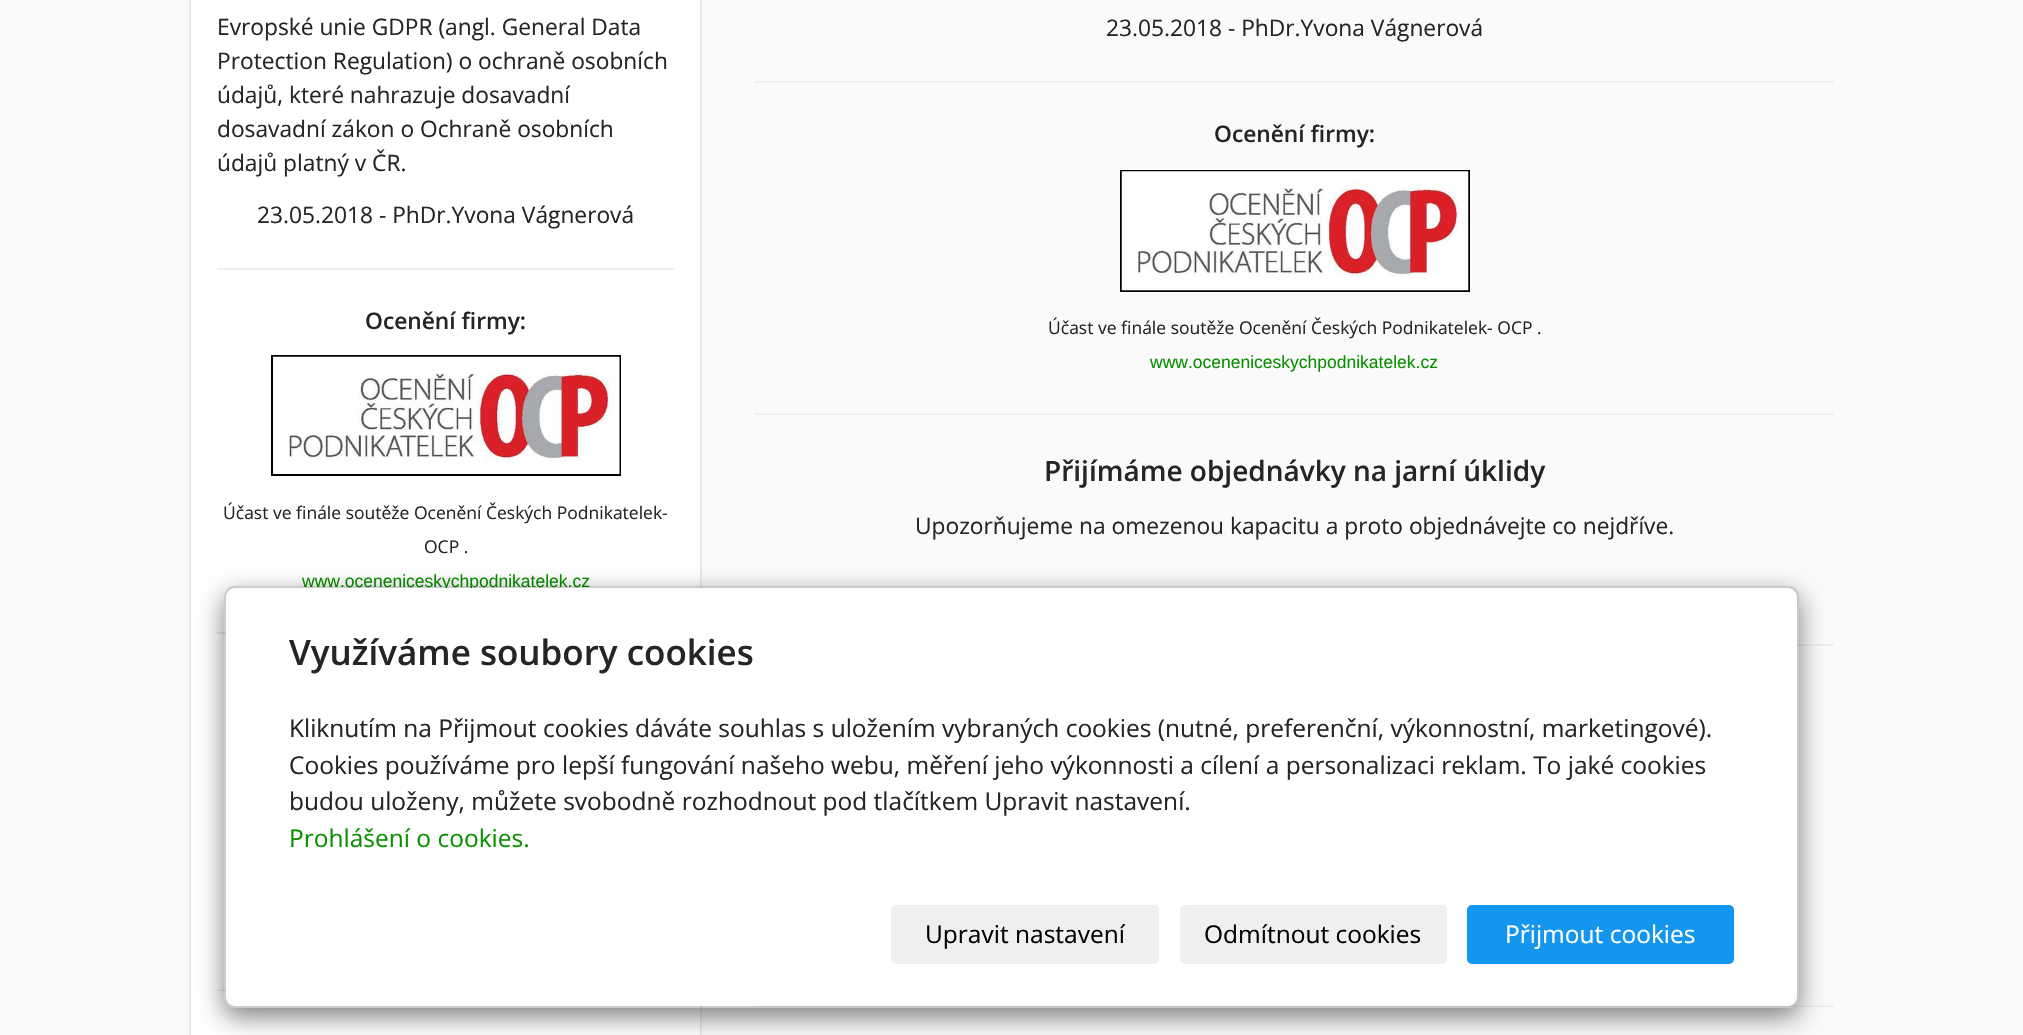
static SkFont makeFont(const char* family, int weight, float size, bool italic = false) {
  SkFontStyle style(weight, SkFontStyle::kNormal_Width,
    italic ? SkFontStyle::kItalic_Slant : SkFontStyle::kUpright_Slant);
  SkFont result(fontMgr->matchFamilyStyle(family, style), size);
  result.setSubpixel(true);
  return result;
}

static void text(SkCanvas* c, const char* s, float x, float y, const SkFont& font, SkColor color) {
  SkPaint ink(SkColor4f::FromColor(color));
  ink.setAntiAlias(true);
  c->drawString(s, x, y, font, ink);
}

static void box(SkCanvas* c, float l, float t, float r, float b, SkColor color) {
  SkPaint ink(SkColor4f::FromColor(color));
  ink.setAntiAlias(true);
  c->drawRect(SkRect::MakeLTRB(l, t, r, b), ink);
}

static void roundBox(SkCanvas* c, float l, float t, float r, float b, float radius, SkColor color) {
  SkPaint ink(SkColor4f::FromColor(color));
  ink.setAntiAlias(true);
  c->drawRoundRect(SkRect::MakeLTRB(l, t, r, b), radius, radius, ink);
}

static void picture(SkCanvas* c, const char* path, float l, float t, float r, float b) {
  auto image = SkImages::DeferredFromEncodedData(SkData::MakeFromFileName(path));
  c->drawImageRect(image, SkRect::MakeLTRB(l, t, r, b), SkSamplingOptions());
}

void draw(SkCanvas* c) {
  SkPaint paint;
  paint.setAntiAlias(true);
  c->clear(0xfffafafa);
  paint.setColor(0xffffffff);
  c->drawRect(SkRect::MakeLTRB(190, -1, 701, 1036), paint);
  paint.setStyle(SkPaint::kStroke_Style);
  paint.setStrokeWidth(2);
  paint.setColor(0xffeaeaea);
  c->drawRect(SkRect::MakeLTRB(190, -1, 701, 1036), paint);
  SkFont face1 = makeFont("Open Sans", 400, 22.75f);
  text(c, "Evropské unie GDPR (angl. General Data", 217, 35, face1, 0xff252525);
  text(c, "Protection Regulation) o ochraně osobních", 217, 69, face1, 0xff252525);
  text(c, "údajů, které nahrazuje dosavadní", 217, 103, face1, 0xff252525);
  text(c, "dosavadní zákon o Ochraně osobních", 217, 137, face1, 0xff252525);
  text(c, "údajů platný v ČR.", 217, 171, face1, 0xff252525);
  text(c, "23.05.2018 - PhDr.Yvona Vágnerová", 257, 223, face1, 0xff252525);
  box(c, 217, 268, 674, 270, 0xffeeeeee);
  SkFont face2 = makeFont("Open Sans", 600, 22.75f);
  text(c, "Ocenění firmy:", 365, 329, face2, 0xff252525);
  paint.setColor(0xff000000);
  c->drawRect(SkRect::MakeLTRB(272, 356, 620, 475), paint);
  picture(c, "img_01.png", 273, 356, 620, 474);
  SkFont face3 = makeFont("Open Sans", 400, 17.5f);
  text(c, "Účast ve finále soutěže Ocenění Českých Podnikatelek-", 223, 519, face3, 0xff252525);
  text(c, "OCP .", 424, 553, face3, 0xff252525);
  SkFont face4 = makeFont("Liberation Sans", 400, 17.5f);
  text(c, "www.oceneniceskychpodnikatelek.cz", 302, 587, face4, 0xff099000);
  box(c, 217, 632, 226, 634, 0xffeeeeee);
  box(c, 217, 989, 226, 991, 0xffeeeeee);
  text(c, "23.05.2018 - PhDr.Yvona Vágnerová", 1106, 36, face1, 0xff252525);
  box(c, 754, 81, 1834, 83, 0xffeeeeee);
  text(c, "Ocenění firmy:", 1214, 142, face2, 0xff252525);
  c->drawRect(SkRect::MakeLTRB(1121, 171, 1469, 291), paint);
  picture(c, "img_02.png", 1121, 171, 1469, 291);
  text(c, "Účast ve finále soutěže Ocenění Českých Podnikatelek- OCP .", 1048, 334, face3, 0xff252525);
  text(c, "www.oceneniceskychpodnikatelek.cz", 1150, 368, face4, 0xff099000);
  box(c, 754, 413, 1834, 415, 0xffeeeeee);
  SkFont face5 = makeFont("Open Sans", 600, 28);
  text(c, "Přijímáme objednávky na jarní úklidy", 1044, 481, face5, 0xff252525);
  text(c, "Upozorňujeme na omezenou kapacitu a proto objednávejte co nejdříve.", 915, 534, face1, 0xff252525);
  box(c, 1797, 644, 1834, 646, 0xffeeeeee);
  box(c, 754, 1005, 1834, 1007, 0xffeeeeee);
  c->save();
  c->clipPath(SkPathBuilder(SkPathFillType::kEvenOdd).moveTo(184, 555).lineTo(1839, 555).lineTo(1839, 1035).lineTo(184, 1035).close().moveTo(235, 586).lineTo(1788, 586).cubicTo(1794, 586, 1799, 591, 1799, 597).lineTo(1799, 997).cubicTo(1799, 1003, 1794, 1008, 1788, 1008).lineTo(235, 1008).cubicTo(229, 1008, 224, 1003, 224, 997).lineTo(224, 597).cubicTo(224, 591, 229, 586, 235, 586).close().detach(), true);
  paint.setStyle(SkPaint::kFill_Style);
  paint.setColor(0x80000000);
  paint.setMaskFilter(SkMaskFilter::MakeBlur(kNormal_SkBlurStyle, 13));
  c->drawRoundRect(SkRect::MakeLTRB(224, 595, 1799, 1017), 11, 11, paint);
  paint.setMaskFilter(nullptr);
  c->restore();
  roundBox(c, 226, 588, 1797, 1006, 9, 0xffffffff);
  paint.setStyle(SkPaint::kStroke_Style);
  paint.setColor(0x33000000);
  c->drawRoundRect(SkRect::MakeLTRB(225, 587, 1798, 1007), 10, 10, paint);
  SkFont face6 = makeFont("Open Sans", 600, 35);
  text(c, "Využíváme soubory cookies", 289, 665, face6, 0xff252525);
  SkFont face7 = makeFont("Open Sans", 400, 24.5f);
  text(c, "Kliknutím na Přijmout cookies dáváte souhlas s uložením vybraných cookies (nutné, preferenční, výkonnostní, marketingové).", 289, 737, face7, 0xff252525);
  text(c, "Cookies používáme pro lepší fungování našeho webu, měření jeho výkonnosti a cílení a personalizaci reklam. To jaké cookies", 289, 774, face7, 0xff252525);
  text(c, "budou uloženy, můžete svobodně rozhodnout pod tlačítkem Upravit nastavení.", 289, 810, face7, 0xff252525);
  text(c, "Prohlášení o cookies.", 289, 847, face7, 0xff099000);
  roundBox(c, 891, 905, 1159, 964, 5, 0xffefefef);
  text(c, "Upravit nastavení", 925, 943, face7, 0xff000000);
  roundBox(c, 1180, 905, 1447, 964, 5, 0xffefefef);
  text(c, "Odmítnout cookies", 1204, 943, face7, 0xff000000);
  paint.setStyle(SkPaint::kFill_Style);
  paint.setColor(0xff1496ee);
  c->drawRoundRect(SkRect::MakeLTRB(1468, 906, 1733, 963), 4, 4, paint);
  paint.setStyle(SkPaint::kStroke_Style);
  c->drawRoundRect(SkRect::MakeLTRB(1468, 906, 1733, 963), 4, 4, paint);
  text(c, "Přijmout cookies", 1505, 943, face7, 0xffffffff);
}
